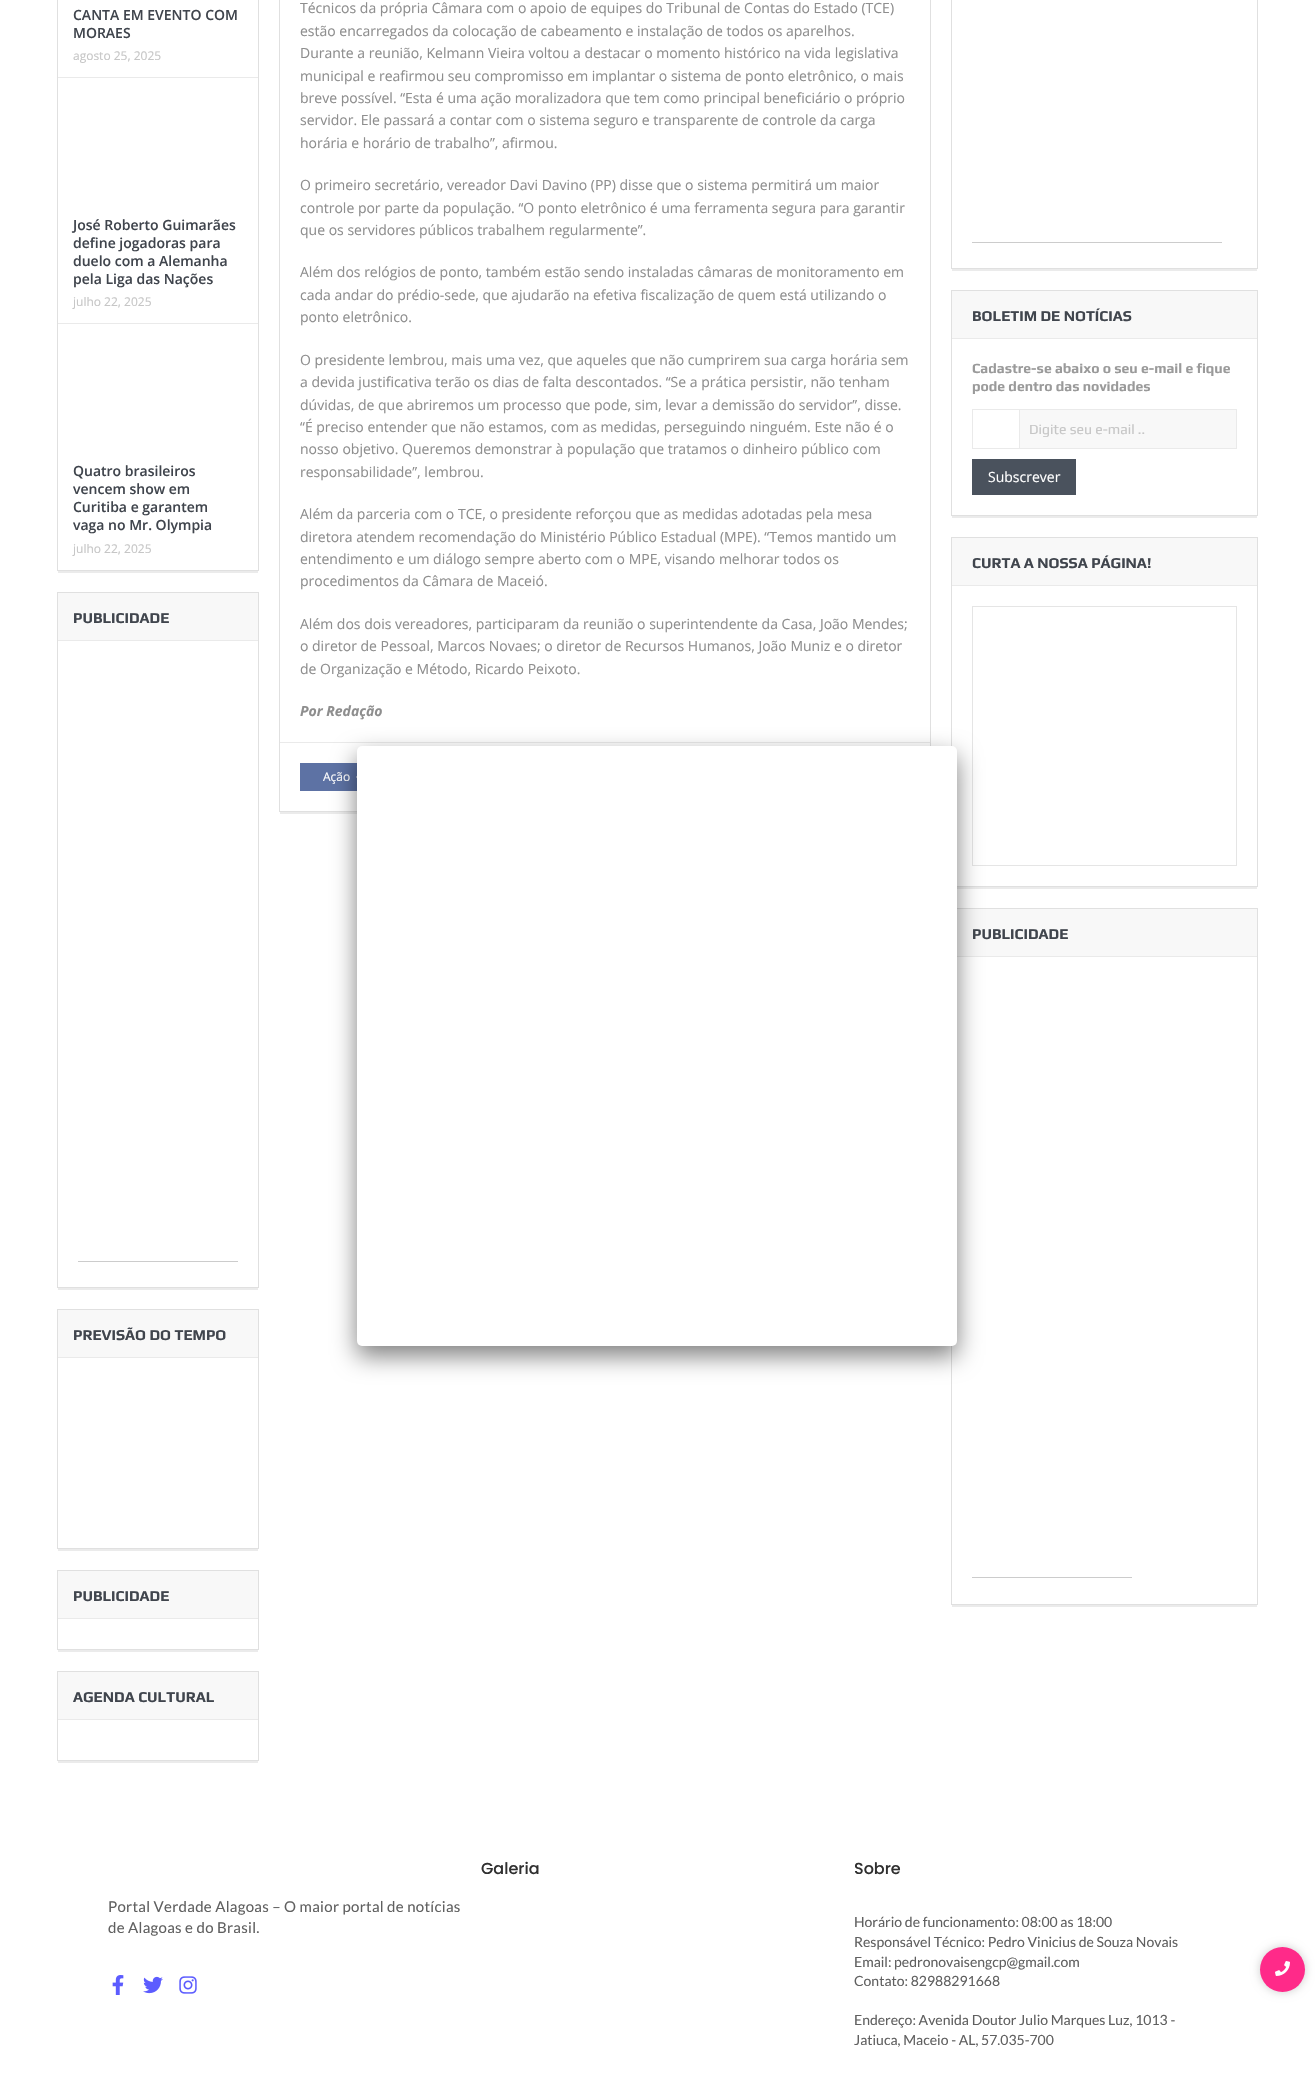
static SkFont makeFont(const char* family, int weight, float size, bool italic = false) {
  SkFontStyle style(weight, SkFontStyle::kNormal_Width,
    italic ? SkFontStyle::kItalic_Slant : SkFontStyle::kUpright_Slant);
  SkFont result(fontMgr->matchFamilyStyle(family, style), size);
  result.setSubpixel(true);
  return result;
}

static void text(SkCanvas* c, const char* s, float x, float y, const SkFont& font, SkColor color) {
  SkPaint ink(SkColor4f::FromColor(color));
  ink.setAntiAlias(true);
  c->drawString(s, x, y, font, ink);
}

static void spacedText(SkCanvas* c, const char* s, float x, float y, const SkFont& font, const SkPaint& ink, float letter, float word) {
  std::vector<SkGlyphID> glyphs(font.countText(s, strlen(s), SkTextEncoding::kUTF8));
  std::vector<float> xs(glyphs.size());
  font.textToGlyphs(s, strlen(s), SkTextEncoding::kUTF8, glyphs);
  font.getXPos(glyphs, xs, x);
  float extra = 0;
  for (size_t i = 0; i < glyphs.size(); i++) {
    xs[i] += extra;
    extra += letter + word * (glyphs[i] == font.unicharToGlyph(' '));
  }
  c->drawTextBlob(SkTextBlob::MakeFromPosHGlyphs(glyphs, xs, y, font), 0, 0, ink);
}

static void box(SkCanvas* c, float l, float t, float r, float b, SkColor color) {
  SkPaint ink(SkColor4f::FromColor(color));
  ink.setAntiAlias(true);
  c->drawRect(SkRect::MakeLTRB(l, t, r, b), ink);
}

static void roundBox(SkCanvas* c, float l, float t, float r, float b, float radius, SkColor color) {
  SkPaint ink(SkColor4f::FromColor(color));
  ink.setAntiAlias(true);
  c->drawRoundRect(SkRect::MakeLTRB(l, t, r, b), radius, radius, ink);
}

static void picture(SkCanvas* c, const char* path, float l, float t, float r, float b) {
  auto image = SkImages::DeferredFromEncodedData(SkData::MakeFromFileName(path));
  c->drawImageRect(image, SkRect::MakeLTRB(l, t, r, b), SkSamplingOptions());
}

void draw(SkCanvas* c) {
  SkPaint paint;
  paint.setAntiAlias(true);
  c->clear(0xffffffff);
  paint.setStyle(SkPaint::kStroke_Style);
  paint.setStrokeWidth(1);
  paint.setColor(0xffe0e0e0);
  c->drawRect(SkRect::MakeLTRB(57.5f, -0.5f, 258.5f, 570.5f), paint);
  box(c, 58, 77, 258, 78, 0xffeaeaea);
  SkFont face1 = makeFont("Open Sans", 600, 14);
  text(c, "CANTA EM EVENTO COM", 73, 20, face1, 0xff40454d);
  text(c, "MORAES", 73, 38, face1, 0xff40454d);
  SkFont face2 = makeFont("Open Sans", 400, 12);
  text(c, "agosto 25, 2025", 73, 60, face2, 0xffc6c6c6);
  box(c, 58, 323, 258, 324, 0xffeaeaea);
  text(c, "José Roberto Guimarães", 73, 230, face1, 0xff40454d);
  text(c, "define jogadoras para", 73, 248, face1, 0xff40454d);
  text(c, "duelo com a Alemanha", 73, 266, face1, 0xff40454d);
  text(c, "pela Liga das Nações", 73, 284, face1, 0xff40454d);
  text(c, "julho 22, 2025", 73, 306, face2, 0xffc6c6c6);
  text(c, "Quatro brasileiros", 73, 476, face1, 0xff40454d);
  text(c, "vencem show em", 73, 494, face1, 0xff40454d);
  text(c, "Curitiba e garantem", 73, 512, face1, 0xff40454d);
  text(c, "vaga no Mr. Olympia", 73, 530, face1, 0xff40454d);
  text(c, "julho 22, 2025", 73, 553, face2, 0xffc6c6c6);
  box(c, 58, 571, 258, 573, 0xffebebeb);
  c->drawRect(SkRect::MakeLTRB(57.5f, 592.5f, 258.5f, 1287.5f), paint);
  box(c, 58, 593, 258, 640, 0xfff8f8f8);
  box(c, 58, 640, 258, 641, 0xffeaeaea);
  SkFont face3 = makeFont("Play", 700, 15);
  text(c, "PUBLICIDADE", 73, 623, face3, 0xff40454d);
  box(c, 78, 1261, 238, 1262, 0xffcccccc);
  box(c, 58, 1288, 258, 1290, 0xffebebeb);
  c->drawRect(SkRect::MakeLTRB(57.5f, 1309.5f, 258.5f, 1548.5f), paint);
  box(c, 58, 1310, 258, 1357, 0xfff8f8f8);
  box(c, 58, 1357, 258, 1358, 0xffeaeaea);
  text(c, "PREVISÃO DO TEMPO", 73, 1340, face3, 0xff40454d);
  box(c, 58, 1549, 258, 1551, 0xffebebeb);
  c->drawRect(SkRect::MakeLTRB(57.5f, 1570.5f, 258.5f, 1649.5f), paint);
  box(c, 58, 1571, 258, 1618, 0xfff8f8f8);
  box(c, 58, 1618, 258, 1619, 0xffeaeaea);
  text(c, "PUBLICIDADE", 73, 1601, face3, 0xff40454d);
  box(c, 58, 1650, 258, 1652, 0xffebebeb);
  c->drawRect(SkRect::MakeLTRB(57.5f, 1671.5f, 258.5f, 1760.5f), paint);
  box(c, 58, 1672, 258, 1719, 0xfff8f8f8);
  box(c, 58, 1719, 258, 1720, 0xffeaeaea);
  text(c, "AGENDA CULTURAL", 73, 1702, face3, 0xff40454d);
  box(c, 58, 1761, 258, 1763, 0xffebebeb);
  c->drawRect(SkRect::MakeLTRB(279.5f, -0.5f, 930.5f, 811.5f), paint);
  SkFont face4 = makeFont("Open Sans", 400, 14);
  text(c, "Técnicos da própria Câmara com o apoio de equipes do Tribunal de Contas do Estado (TCE)", 300, 13, face4, 0xff8e8e8e);
  text(c, "estão encarregados da colocação de cabeamento e instalação de todos os aparelhos.", 300, 36, face4, 0xff8e8e8e);
  text(c, "Durante a reunião, Kelmann Vieira voltou a destacar o momento histórico na vida legislativa", 300, 58, face4, 0xff8e8e8e);
  text(c, "municipal e reafirmou seu compromisso em implantar o sistema de ponto eletrônico, o mais", 300, 81, face4, 0xff8e8e8e);
  text(c, "breve possível. “Esta é uma ação moralizadora que tem como principal beneficiário o próprio", 300, 103, face4, 0xff8e8e8e);
  text(c, "servidor. Ele passará a contar com o sistema seguro e transparente de controle da carga", 300, 125, face4, 0xff8e8e8e);
  text(c, "horária e horário de trabalho”, afirmou.", 300, 148, face4, 0xff8e8e8e);
  text(c, "O primeiro secretário, vereador Davi Davino (PP) disse que o sistema permitirá um maior", 300, 190, face4, 0xff8e8e8e);
  text(c, "controle por parte da população. “O ponto eletrônico é uma ferramenta segura para garantir", 300, 213, face4, 0xff8e8e8e);
  text(c, "que os servidores públicos trabalhem regularmente”.", 300, 235, face4, 0xff8e8e8e);
  text(c, "Além dos relógios de ponto, também estão sendo instaladas câmaras de monitoramento em", 300, 277, face4, 0xff8e8e8e);
  text(c, "cada andar do prédio-sede, que ajudarão na efetiva fiscalização de quem está utilizando o", 300, 300, face4, 0xff8e8e8e);
  text(c, "ponto eletrônico.", 300, 322, face4, 0xff8e8e8e);
  text(c, "O presidente lembrou, mais uma vez, que aqueles que não cumprirem sua carga horária sem", 300, 365, face4, 0xff8e8e8e);
  text(c, "a devida justificativa terão os dias de falta descontados. “Se a prática persistir, não tenham", 300, 387, face4, 0xff8e8e8e);
  text(c, "dúvidas, de que abriremos um processo que pode, sim, levar a demissão do servidor”, disse.", 300, 410, face4, 0xff8e8e8e);
  text(c, "“É preciso entender que não estamos, com as medidas, perseguindo ninguém. Este não é o", 300, 432, face4, 0xff8e8e8e);
  text(c, "nosso objetivo. Queremos demonstrar à população que tratamos o dinheiro público com", 300, 454, face4, 0xff8e8e8e);
  text(c, "responsabilidade”, lembrou.", 300, 477, face4, 0xff8e8e8e);
  text(c, "Além da parceria com o TCE, o presidente reforçou que as medidas adotadas pela mesa", 300, 519, face4, 0xff8e8e8e);
  text(c, "diretora atendem recomendação do Ministério Público Estadual (MPE). “Temos mantido um", 300, 542, face4, 0xff8e8e8e);
  text(c, "entendimento e um diálogo sempre aberto com o MPE, visando melhorar todos os", 300, 564, face4, 0xff8e8e8e);
  text(c, "procedimentos da Câmara de Maceió.", 300, 586, face4, 0xff8e8e8e);
  text(c, "Além dos dois vereadores, participaram da reunião o superintendente da Casa, João Mendes;", 300, 629, face4, 0xff8e8e8e);
  text(c, "o diretor de Pessoal, Marcos Novaes; o diretor de Recursos Humanos, João Muniz e o diretor", 300, 651, face4, 0xff8e8e8e);
  text(c, "de Organização e Método, Ricardo Peixoto.", 300, 674, face4, 0xff8e8e8e);
  SkFont face5 = makeFont("Open Sans", 700, 14, true);
  text(c, "Por Redação", 300, 716, face5, 0xff8e8e8e);
  box(c, 280, 742, 930, 743, 0xffeaeaea);
  box(c, 300, 763, 357, 791, 0xff5d72a4);
  text(c, "Ação", 323, 781, face2, 0xffffffff);
  paint.setStyle(SkPaint::kFill_Style);
  paint.setColor(0xffeaeaea);
  c->drawPath(SkPathBuilder().moveTo(361, 772).lineTo(361, 782).lineTo(356, 777).close().detach(), paint);
  box(c, 280, 812, 357, 814, 0xffebebeb);
  paint.setStyle(SkPaint::kStroke_Style);
  paint.setColor(0xffe0e0e0);
  c->drawRect(SkRect::MakeLTRB(951.5f, -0.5f, 1257.5f, 268.5f), paint);
  box(c, 972, 242, 1222, 243, 0xffcccccc);
  box(c, 952, 269, 1257, 271, 0xffebebeb);
  c->drawRect(SkRect::MakeLTRB(951.5f, 290.5f, 1257.5f, 515.5f), paint);
  box(c, 952, 291, 1257, 338, 0xfff8f8f8);
  box(c, 952, 338, 1257, 339, 0xffeaeaea);
  text(c, "BOLETIM DE NOTÍCIAS", 972, 321, face3, 0xff40454d);
  SkFont face6 = makeFont("Play", 700, 14);
  text(c, "Cadastre-se abaixo o seu e-mail e fique", 972, 373, face6, 0xff9a9a9a);
  text(c, "pode dentro das novidades", 972, 391, face6, 0xff9a9a9a);
  box(c, 1020, 410, 1236, 448, 0xfff8f8f8);
  paint.setColor(0xffeaeaea);
  c->drawRect(SkRect::MakeLTRB(972.5f, 409.5f, 1236.5f, 448.5f), paint);
  box(c, 1019, 410, 1020, 448, 0xffeaeaea);
  SkFont face7 = makeFont("Play", 400, 14);
  text(c, "Digite seu e-mail ..", 1029, 434, face7, 0xffc6c6c6);
  box(c, 972, 459, 1076, 495, 0xff4a525d);
  text(c, "Subscrever", 988, 482, face4, 0xffffffff);
  box(c, 952, 516, 1257, 518, 0xffebebeb);
  paint.setColor(0xffe0e0e0);
  c->drawRect(SkRect::MakeLTRB(951.5f, 537.5f, 1257.5f, 886.5f), paint);
  box(c, 952, 538, 1257, 585, 0xfff8f8f8);
  box(c, 952, 585, 1257, 586, 0xffeaeaea);
  text(c, "CURTA A NOSSA PÁGINA!", 972, 568, face3, 0xff40454d);
  paint.setColor(0xffe5e5e5);
  c->drawRect(SkRect::MakeLTRB(972.5f, 606.5f, 1236.5f, 865.5f), paint);
  box(c, 952, 887, 1257, 889, 0xffebebeb);
  paint.setColor(0xffe0e0e0);
  c->drawRect(SkRect::MakeLTRB(951.5f, 908.5f, 1257.5f, 1604.5f), paint);
  box(c, 957, 909, 1257, 956, 0xfff8f8f8);
  box(c, 952, 956, 1257, 957, 0xffeaeaea);
  text(c, "PUBLICIDADE", 972, 939, face3, 0xff40454d);
  box(c, 972, 1577, 1132, 1578, 0xffcccccc);
  box(c, 952, 1605, 1257, 1607, 0xffebebeb);
  paint.setStyle(SkPaint::kFill_Style);
  paint.setColor(0x80000000);
  paint.setMaskFilter(SkMaskFilter::MakeBlur(kNormal_SkBlurStyle, 12.5f));
  c->drawRoundRect(SkRect::MakeLTRB(357, 756, 957, 1356), 4, 4, paint);
  paint.setMaskFilter(nullptr);
  roundBox(c, 357, 746, 957, 1346, 5, 0xffffffff);
  SkFont face8 = makeFont("Lato", 400, 15);
  paint.setColor(0xff606060);
  spacedText(c, "Portal Verdade Alagoas – O maior portal de notícias", 108, 1912, face8, paint, 0.3f, 0);
  spacedText(c, "de Alagoas e do Brasil.", 108, 1933, face8, paint, 0.3f, 0);
  picture(c, "img_01.png", 112, 1975, 124, 1995);
  picture(c, "img_02.png", 143, 1976, 163, 1994);
  picture(c, "img_03.png", 179, 1976, 197, 1994);
  SkFont face9 = makeFont("Poppins", 500, 16);
  text(c, "Galeria", 481, 1874, face9, 0xff303030);
  text(c, "Sobre", 854, 1874, face9, 0xff303030);
  SkFont face10 = makeFont("Lato", 400, 14);
  text(c, "Horário de funcionamento: 08:00 as 18:00", 854, 1927, face10, 0xff606060);
  text(c, "Responsável Técnico: Pedro Vinicius de Souza Novais", 854, 1947, face10, 0xff606060);
  text(c, "Email: pedronovaisengcp@gmail.com", 854, 1967, face10, 0xff606060);
  text(c, "Contato: 82988291668", 854, 1986, face10, 0xff606060);
  text(c, "Endereço: Avenida Doutor Julio Marques Luz, 1013 -", 854, 2025, face10, 0xff606060);
  text(c, "Jatiuca, Maceio - AL, 57.035-700", 854, 2045, face10, 0xff606060);
  paint.setColor(0x33000000);
  paint.setMaskFilter(SkMaskFilter::MakeBlur(kNormal_SkBlurStyle, 5));
  c->drawRoundRect(SkRect::MakeLTRB(1260, 1947, 1305, 1992), 22.5f, 22.5f, paint);
  paint.setMaskFilter(nullptr);
  paint.setColor(0xffff2a89);
  c->drawCircle(1282.5f, 1969.5f, 22.5f, paint);
  picture(c, "img_04.png", 1275, 1961, 1290, 1976);
}
